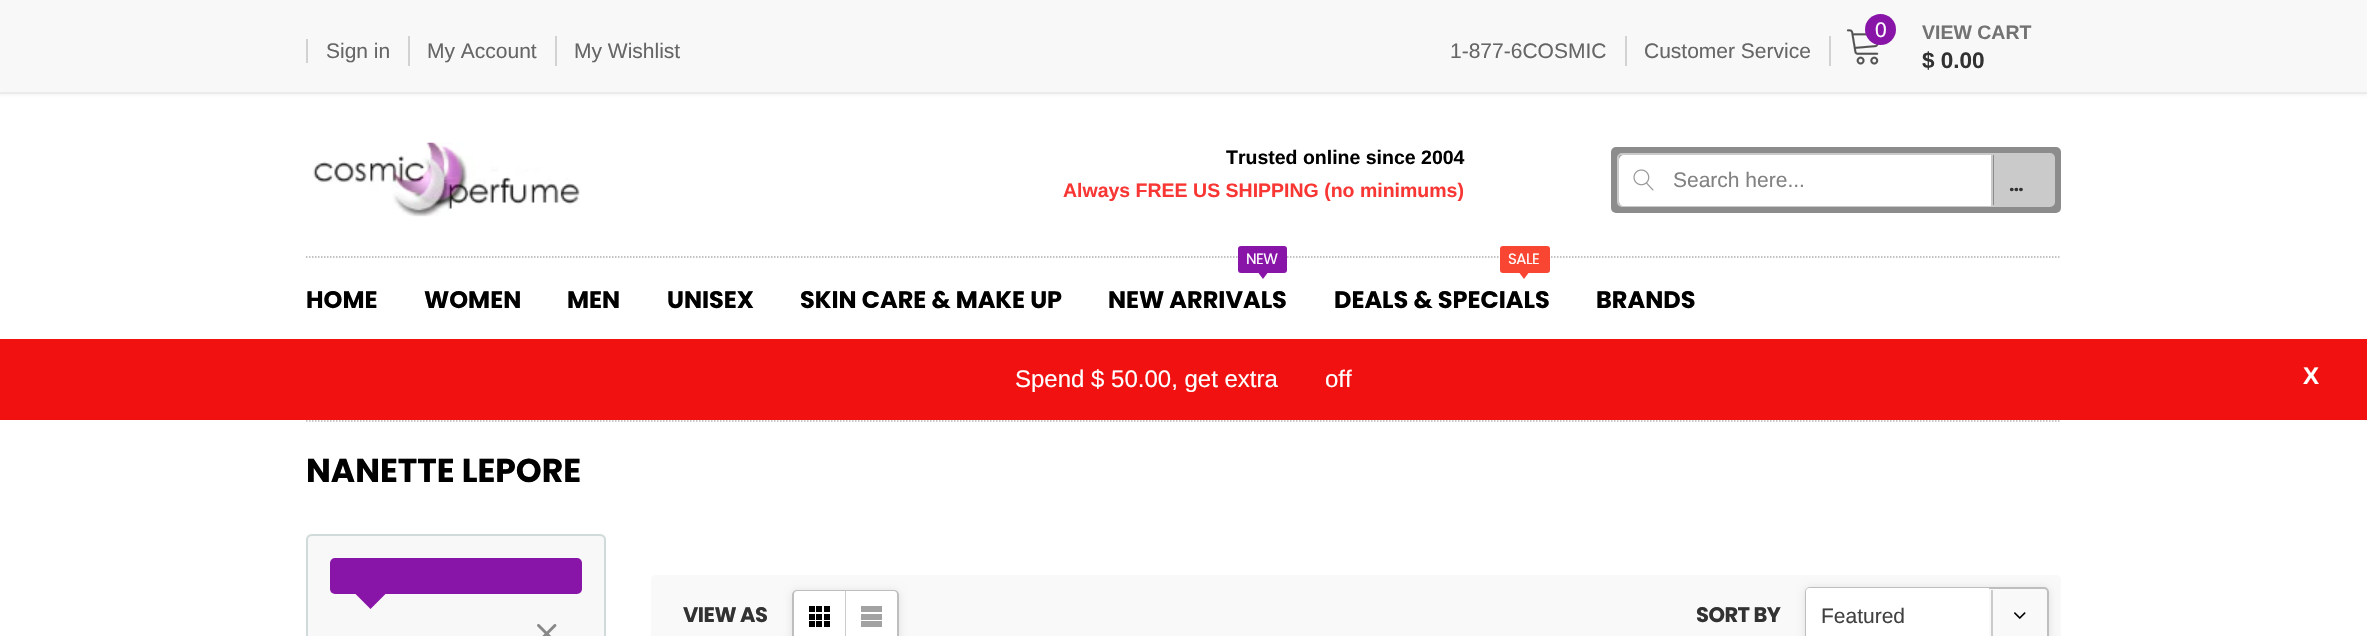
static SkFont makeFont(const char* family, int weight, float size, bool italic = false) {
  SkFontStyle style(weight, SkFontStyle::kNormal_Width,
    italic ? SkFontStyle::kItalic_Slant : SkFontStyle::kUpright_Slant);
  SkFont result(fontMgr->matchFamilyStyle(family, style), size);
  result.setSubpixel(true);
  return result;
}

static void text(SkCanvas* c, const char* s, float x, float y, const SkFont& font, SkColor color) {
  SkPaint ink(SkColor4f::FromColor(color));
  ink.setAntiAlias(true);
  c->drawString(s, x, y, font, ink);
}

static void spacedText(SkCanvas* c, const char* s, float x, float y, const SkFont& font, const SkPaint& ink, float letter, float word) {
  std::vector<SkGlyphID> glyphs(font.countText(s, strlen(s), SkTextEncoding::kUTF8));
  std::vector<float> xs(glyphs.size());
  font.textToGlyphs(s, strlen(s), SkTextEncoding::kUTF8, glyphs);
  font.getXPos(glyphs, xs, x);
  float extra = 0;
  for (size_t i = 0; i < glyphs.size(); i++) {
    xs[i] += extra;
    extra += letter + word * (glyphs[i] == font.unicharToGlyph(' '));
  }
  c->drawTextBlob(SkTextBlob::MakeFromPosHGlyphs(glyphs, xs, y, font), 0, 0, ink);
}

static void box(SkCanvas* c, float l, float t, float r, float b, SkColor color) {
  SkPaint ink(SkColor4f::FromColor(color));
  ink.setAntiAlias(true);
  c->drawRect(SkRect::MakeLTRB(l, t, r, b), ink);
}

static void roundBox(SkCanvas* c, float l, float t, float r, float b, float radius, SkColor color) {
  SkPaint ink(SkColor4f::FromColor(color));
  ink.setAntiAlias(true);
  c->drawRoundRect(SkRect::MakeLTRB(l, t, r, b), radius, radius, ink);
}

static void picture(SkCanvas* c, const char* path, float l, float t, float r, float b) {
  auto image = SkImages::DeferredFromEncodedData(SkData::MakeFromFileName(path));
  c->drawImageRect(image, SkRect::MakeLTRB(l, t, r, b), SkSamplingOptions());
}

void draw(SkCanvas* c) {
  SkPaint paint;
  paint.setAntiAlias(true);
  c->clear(0xffffffff);
  paint.setColor(0x0d000000);
  paint.setMaskFilter(SkMaskFilter::MakeBlur(kNormal_SkBlurStyle, 1.5f));
  c->drawRect(SkRect::MakeLTRB(0, 2, 2367, 95), paint);
  paint.setMaskFilter(nullptr);
  box(c, 0, 0, 2367, 92, 0xfff8f8f8);
  box(c, 0, 92, 2367, 94, 0xffebebeb);
  SkFont face1 = makeFont("Arimo", 400, 21);
  text(c, "Sign in", 326, 58, face1, 0xff666666);
  box(c, 306, 39, 308, 63, 0xffd2d2d3);
  box(c, 408, 36, 410, 66, 0xffd2d2d3);
  text(c, "My Account", 427, 58, face1, 0xff666666);
  box(c, 555, 36, 557, 66, 0xffd2d2d3);
  text(c, "My Wishlist", 574, 58, face1, 0xff666666);
  box(c, 1625, 36, 1627, 66, 0xffd2d2d3);
  text(c, "1-877-6COSMIC", 1450, 58, face1, 0xff666666);
  box(c, 1829, 36, 1831, 66, 0xffd2d2d3);
  text(c, "Customer Service", 1644, 58, face1, 0xff666666);
  picture(c, "img_01.png", 1846, 29, 1879, 65);
  paint.setColor(0xff8815a7);
  c->drawCircle(1880.5f, 29.5f, 15.5f, paint);
  paint.setColor(0xffffffff);
  spacedText(c, "0", 1875, 37, face1, paint, -0.5f, 0);
  SkFont face2 = makeFont("Arimo", 700, 19.5f);
  text(c, "VIEW CART", 1922, 39, face2, 0xff737373);
  SkFont face3 = makeFont("Arimo", 700, 22.5f);
  text(c, "$ 0.00", 1922, 68, face3, 0xff323232);
  picture(c, "img_02.png", 313, 142, 580, 217);
  text(c, "Trusted online since 2004", 1226, 164, face2, 0xff000000);
  text(c, "Always FREE US SHIPPING (no minimums)", 1063, 197, face2, 0xfff83734);
  roundBox(c, 1611, 147, 2061, 213, 5, 0xff8c8c8c);
  paint.setStyle(SkPaint::kStroke_Style);
  paint.setStrokeWidth(2);
  paint.setColor(0xffcacaca);
  c->drawRoundRect(SkRect::MakeLTRB(1618, 154, 2054, 206), 4, 4, paint);
  paint.setStyle(SkPaint::kFill_Style);
  paint.setColor(0xffffffff);
  c->drawPath(SkPathBuilder().moveTo(1624, 155).lineTo(1992, 155).lineTo(1992, 206).lineTo(1624, 206).cubicTo(1621, 206, 1619, 204, 1619, 201).lineTo(1619, 160).cubicTo(1619, 157, 1621, 155, 1624, 155).close().detach(), paint);
  picture(c, "img_03.png", 1633, 169, 1654, 191);
  box(c, 1991, 155, 1993, 206, 0xffcacaca);
  text(c, "Search here...", 1673, 187, face1, 0xff828282);
  paint.setColor(0xffcacaca);
  c->drawPath(SkPathBuilder().moveTo(1994, 155).lineTo(2051, 155).cubicTo(2052.5f, 155, 2054, 156.5f, 2054, 158).lineTo(2054, 203).cubicTo(2054, 204.5f, 2052.5f, 206, 2051, 206).lineTo(1994, 206).close().detach(), paint);
  SkFont face4 = makeFont("Poppins", 600, 21);
  text(c, "…", 2009, 191, face4, 0xff323232);
  paint.setStyle(SkPaint::kStroke_Style);
  paint.setStrokeWidth(1.5f);
  paint.setColor(0xffafafb0);
  paint.setPathEffect(SkDashPathEffect::Make({{1.5f, 1.5f}}, 0));
  c->drawPath(SkPathBuilder().moveTo(306, 257).lineTo(2061, 257).detach(), paint);
  paint.setPathEffect(nullptr);
  SkFont face5 = makeFont("Poppins", 700, 24);
  text(c, "HOME", 306, 308, face5, 0xff000000);
  text(c, "WOMEN", 424, 308, face5, 0xff000000);
  text(c, "MEN", 567, 308, face5, 0xff000000);
  text(c, "UNISEX", 667, 308, face5, 0xff000000);
  text(c, "SKIN CARE & MAKE UP", 800, 308, face5, 0xff000000);
  roundBox(c, 1238, 246, 1287, 273, 3, 0xff8815a7);
  SkFont face6 = makeFont("Poppins", 400, 15);
  paint.setStyle(SkPaint::kFill_Style);
  paint.setColor(0xffffffff);
  spacedText(c, "NEW", 1246, 264, face6, paint, -0.5f, 0);
  paint.setColor(0xff8815a7);
  c->drawPath(SkPathBuilder().moveTo(1258.5f, 273).lineTo(1267.5f, 273).lineTo(1263, 279).close().detach(), paint);
  text(c, "NEW ARRIVALS", 1108, 308, face5, 0xff000000);
  roundBox(c, 1500, 246, 1550, 273, 3, 0xfff94633);
  paint.setColor(0xffffffff);
  spacedText(c, "SALE", 1508, 264, face6, paint, -0.5f, 0);
  paint.setColor(0xfff94633);
  c->drawPath(SkPathBuilder().moveTo(1519.5f, 273).lineTo(1528.5f, 273).lineTo(1524, 279).close().detach(), paint);
  text(c, "DEALS & SPECIALS", 1334, 308, face5, 0xff000000);
  text(c, "BRANDS", 1596, 308, face5, 0xff000000);
  box(c, 0, 339, 2367, 420, 0xfff11111);
  SkFont face7 = makeFont("Arimo", 400, 24);
  text(c, "Spend $ 50.00, get extra", 1015, 387, face7, 0xffffffff);
  text(c, "off", 1325, 387, face7, 0xffffffff);
  SkFont face8 = makeFont("Arimo", 700, 24);
  text(c, "X", 2303, 384, face8, 0xffffffff);
  paint.setStyle(SkPaint::kStroke_Style);
  paint.setColor(0xffb7b7b7);
  paint.setPathEffect(SkDashPathEffect::Make({{1.5f, 1.5f}}, 0));
  c->drawPath(SkPathBuilder().moveTo(306, 421).lineTo(2061, 421).detach(), paint);
  paint.setPathEffect(nullptr);
  SkFont face9 = makeFont("Poppins", 700, 33);
  text(c, "NANETTE LEPORE", 306, 482, face9, 0xff000000);
  c->save();
  c->clipRect(SkRect::MakeLTRB(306, 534, 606, 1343));
  paint.setStyle(SkPaint::kFill_Style);
  paint.setColor(0x1a000000);
  paint.setMaskFilter(SkMaskFilter::MakeBlur(kNormal_SkBlurStyle, 4));
  c->drawRoundRect(SkRect::MakeLTRB(306, 536, 606, 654), 6, 6, paint);
  paint.setMaskFilter(nullptr);
  c->restore();
  paint.setColor(0xfff8f8f8);
  c->drawRoundRect(SkRect::MakeLTRB(307, 535, 605, 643), 5, 5, paint);
  paint.setStyle(SkPaint::kStroke_Style);
  paint.setStrokeWidth(2);
  paint.setColor(0xffd1dada);
  c->drawRoundRect(SkRect::MakeLTRB(307, 535, 605, 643), 5, 5, paint);
  roundBox(c, 330, 558, 582, 594, 5, 0xff8815a7);
  paint.setStyle(SkPaint::kFill_Style);
  paint.setColor(0xff8815a7);
  c->drawPath(SkPathBuilder().moveTo(355.5f, 594).lineTo(385.5f, 594).lineTo(370.5f, 609).close().detach(), paint);
  picture(c, "img_04.png", 537, 624, 557, 636);
  roundBox(c, 651, 575, 2061, 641, 5, 0xfff9f9f9);
  SkFont face10 = makeFont("Poppins", 700, 21);
  paint.setColor(0xff323232);
  spacedText(c, "VIEW AS", 683, 622, face10, paint, -0.5f, 0);
  paint.setColor(0x1a000000);
  paint.setMaskFilter(SkMaskFilter::MakeBlur(kNormal_SkBlurStyle, 4));
  c->drawRoundRect(SkRect::MakeLTRB(792, 591, 899, 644), 5, 5, paint);
  paint.setMaskFilter(nullptr);
  paint.setStyle(SkPaint::kStroke_Style);
  paint.setColor(0xffbebebe);
  c->drawRoundRect(SkRect::MakeLTRB(793, 591, 898, 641), 4, 4, paint);
  paint.setStyle(SkPaint::kFill_Style);
  paint.setColor(0xffffffff);
  c->drawPath(SkPathBuilder().moveTo(797, 591).lineTo(846, 591).lineTo(846, 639).lineTo(797, 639).cubicTo(795.5f, 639, 794, 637.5f, 794, 636).lineTo(794, 594).cubicTo(794, 592.5f, 795.5f, 591, 797, 591).close().detach(), paint);
  box(c, 845, 591, 846, 636, 0xffcbcbcb);
  box(c, 816, 606, 822, 612, 0xff000000);
  box(c, 809, 606, 815, 612, 0xff000000);
  box(c, 824, 606, 830, 612, 0xff000000);
  box(c, 816, 614, 822, 620, 0xff000000);
  box(c, 809, 614, 815, 620, 0xff000000);
  box(c, 824, 614, 830, 620, 0xff000000);
  box(c, 816, 621, 822, 627, 0xff000000);
  box(c, 809, 621, 815, 627, 0xff000000);
  box(c, 824, 621, 830, 627, 0xff000000);
  c->drawPath(SkPathBuilder().moveTo(846, 591).lineTo(894, 591).cubicTo(895.5f, 591, 897, 592.5f, 897, 594).lineTo(897, 636).cubicTo(897, 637.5f, 895.5f, 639, 894, 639).lineTo(846, 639).close().detach(), paint);
  box(c, 861, 606, 882, 612, 0xffa2a2a2);
  box(c, 861, 614, 882, 620, 0xffa2a2a2);
  box(c, 861, 621, 882, 627, 0xffa2a2a2);
  paint.setColor(0xff323232);
  spacedText(c, "SORT BY", 1696, 622, face10, paint, -0.5f, 0);
  c->save();
  c->clipPath(SkPathBuilder(SkPathFillType::kEvenOdd).moveTo(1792, 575).lineTo(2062, 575).lineTo(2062, 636).lineTo(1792, 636).close().moveTo(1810, 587).lineTo(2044, 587).cubicTo(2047, 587, 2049, 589, 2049, 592).lineTo(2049, 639).cubicTo(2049, 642, 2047, 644, 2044, 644).lineTo(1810, 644).cubicTo(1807, 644, 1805, 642, 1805, 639).lineTo(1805, 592).cubicTo(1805, 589, 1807, 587, 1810, 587).close().detach(), true);
  paint.setColor(0x1a000000);
  paint.setMaskFilter(SkMaskFilter::MakeBlur(kNormal_SkBlurStyle, 4));
  c->drawRoundRect(SkRect::MakeLTRB(1805, 588, 2049, 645), 5, 5, paint);
  paint.setMaskFilter(nullptr);
  c->restore();
  paint.setStyle(SkPaint::kStroke_Style);
  paint.setColor(0xffbebebe);
  c->drawRoundRect(SkRect::MakeLTRB(1806, 588, 2048, 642), 4, 4, paint);
  paint.setStyle(SkPaint::kFill_Style);
  paint.setColor(0xffffffff);
  c->drawPath(SkPathBuilder().moveTo(1809, 588).lineTo(1989, 588).lineTo(1989, 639).lineTo(1809, 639).cubicTo(1807.5f, 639, 1806, 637.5f, 1806, 636).lineTo(1806, 591).cubicTo(1806, 589.5f, 1807.5f, 588, 1809, 588).close().detach(), paint);
  text(c, "Featured", 1821, 623, face1, 0xff414141);
  box(c, 1991, 590, 1993, 636, 0xffcbcbcb);
  picture(c, "img_05.png", 2014, 612, 2026, 619);
}
